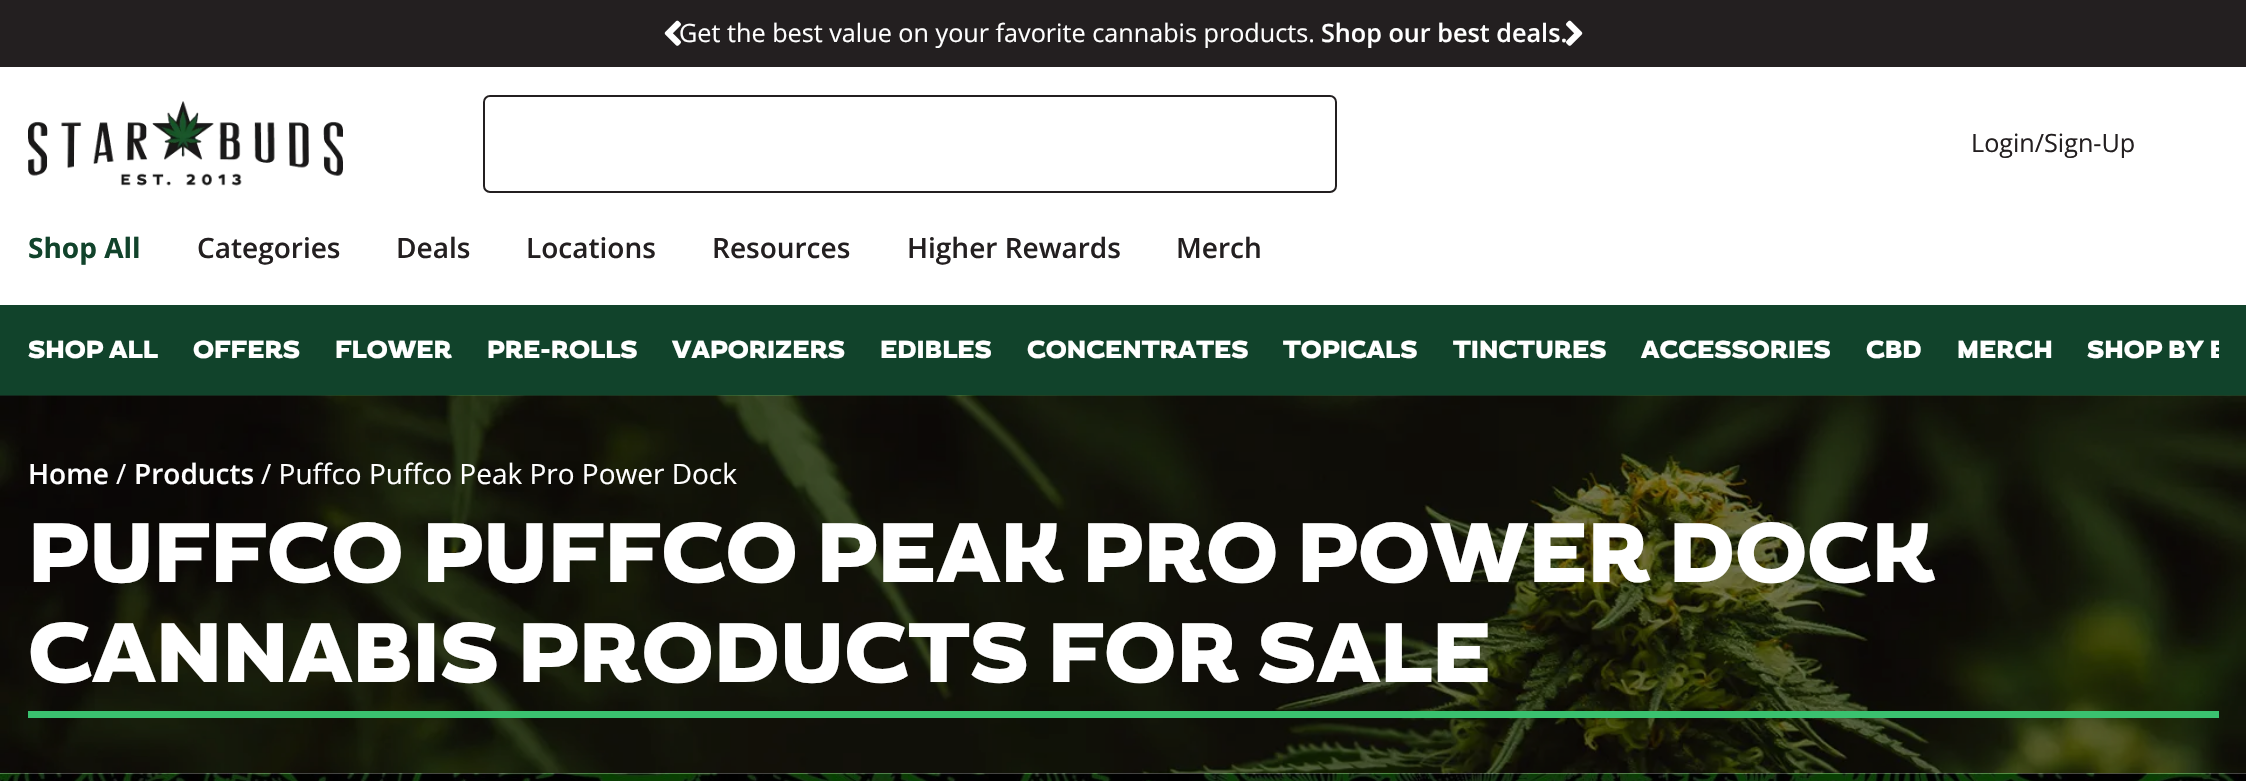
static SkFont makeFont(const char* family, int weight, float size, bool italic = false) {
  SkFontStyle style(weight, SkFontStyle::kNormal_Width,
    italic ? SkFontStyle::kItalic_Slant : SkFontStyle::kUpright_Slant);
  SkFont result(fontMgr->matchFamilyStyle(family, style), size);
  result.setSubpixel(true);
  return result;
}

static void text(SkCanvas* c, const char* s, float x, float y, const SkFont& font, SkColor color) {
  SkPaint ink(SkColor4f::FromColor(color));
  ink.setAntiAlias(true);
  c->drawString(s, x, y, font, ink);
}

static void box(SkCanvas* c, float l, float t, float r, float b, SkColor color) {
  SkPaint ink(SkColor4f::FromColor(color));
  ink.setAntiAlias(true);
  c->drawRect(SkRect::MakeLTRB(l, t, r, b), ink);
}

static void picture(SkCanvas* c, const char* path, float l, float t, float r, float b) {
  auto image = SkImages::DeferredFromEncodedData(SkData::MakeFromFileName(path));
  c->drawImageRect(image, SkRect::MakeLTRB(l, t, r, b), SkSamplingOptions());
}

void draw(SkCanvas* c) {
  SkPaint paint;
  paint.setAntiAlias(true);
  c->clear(0xffffffff);
  box(c, 0, 0, 2246, 67, 0xff231f20);
  SkFont face1 = makeFont("Open Sans", 400, 25.2f);
  text(c, "Get the best value on your favorite cannabis products.", 679, 42, face1, 0xffffffff);
  picture(c, "img_01.png", 664, 20, 681, 46);
  SkFont face2 = makeFont("Open Sans", 600, 25.2f);
  text(c, "Shop our best deals.", 1321, 42, face2, 0xffffffff);
  picture(c, "img_02.png", 1566, 20, 1583, 46);
  picture(c, "img_03.png", 28, 101, 343, 186);
  paint.setStyle(SkPaint::kStroke_Style);
  paint.setStrokeWidth(2);
  paint.setColor(0xff231f20);
  c->drawRoundRect(SkRect::MakeLTRB(484, 96, 1336, 192), 6, 6, paint);
  text(c, "Login/Sign-Up", 1971, 152, face1, 0xff231f20);
  SkFont face3 = makeFont("Open Sans", 700, 28);
  text(c, "Shop All", 28, 258, face3, 0xff11432b);
  SkFont face4 = makeFont("Open Sans", 600, 28);
  text(c, "Categories", 197, 258, face4, 0xff231f20);
  text(c, "Deals", 396, 258, face4, 0xff231f20);
  text(c, "Locations", 526, 258, face4, 0xff231f20);
  text(c, "Resources", 712, 258, face4, 0xff231f20);
  text(c, "Higher Rewards", 907, 258, face4, 0xff231f20);
  text(c, "Merch", 1176, 258, face4, 0xff231f20);
  box(c, 0, 305, 2246, 396, 0xff11432b);
  SkFont face5 = makeFont("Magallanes", 900, 24.5f);
  text(c, "SHOP ALL", 28, 358, face5, 0xffffffff);
  text(c, "OFFERS", 193, 358, face5, 0xffffffff);
  text(c, "FLOWER", 335, 358, face5, 0xffffffff);
  text(c, "PRE-ROLLS", 487, 358, face5, 0xffffffff);
  text(c, "VAPORIZERS", 672, 358, face5, 0xffffffff);
  text(c, "EDIBLES", 880, 358, face5, 0xffffffff);
  text(c, "CONCENTRATES", 1027, 358, face5, 0xffffffff);
  text(c, "TOPICALS", 1283, 358, face5, 0xffffffff);
  text(c, "TINCTURES", 1453, 358, face5, 0xffffffff);
  text(c, "ACCESSORIES", 1641, 358, face5, 0xffffffff);
  text(c, "CBD", 1866, 358, face5, 0xffffffff);
  text(c, "MERCH", 1957, 358, face5, 0xffffffff);
  c->save();
  c->clipRect(SkRect::MakeLTRB(28, 326, 2219, 375));
  text(c, "SHOP BY E", 2087, 358, face5, 0xffffffff);
  c->restore();
  picture(c, "img_04.png", 0, 395, 2246, 774);
  text(c, "Home", 28, 484, face4, 0xffffffff);
  SkFont face6 = makeFont("Open Sans", 400, 28);
  text(c, "/", 116, 484, face6, 0xffffffff);
  text(c, "Products", 134, 484, face4, 0xffffffff);
  text(c, "/ Puffco Puffco Peak Pro Power Dock", 261, 484, face6, 0xffffffff);
  box(c, 28, 711, 2219, 718, 0xff3ac16f);
  SkFont face7 = makeFont("Magallanes", 900, 84);
  text(c, "PUFFCO PUFFCO PEAK PRO POWER DOCK", 28, 582, face7, 0xffffffff);
  text(c, "CANNABIS PRODUCTS FOR SALE", 28, 682, face7, 0xffffffff);
  picture(c, "img_05.png", 0, 773, 2246, 781);
  box(c, 0, 774, 2237, 781, 0x80000000);
}
